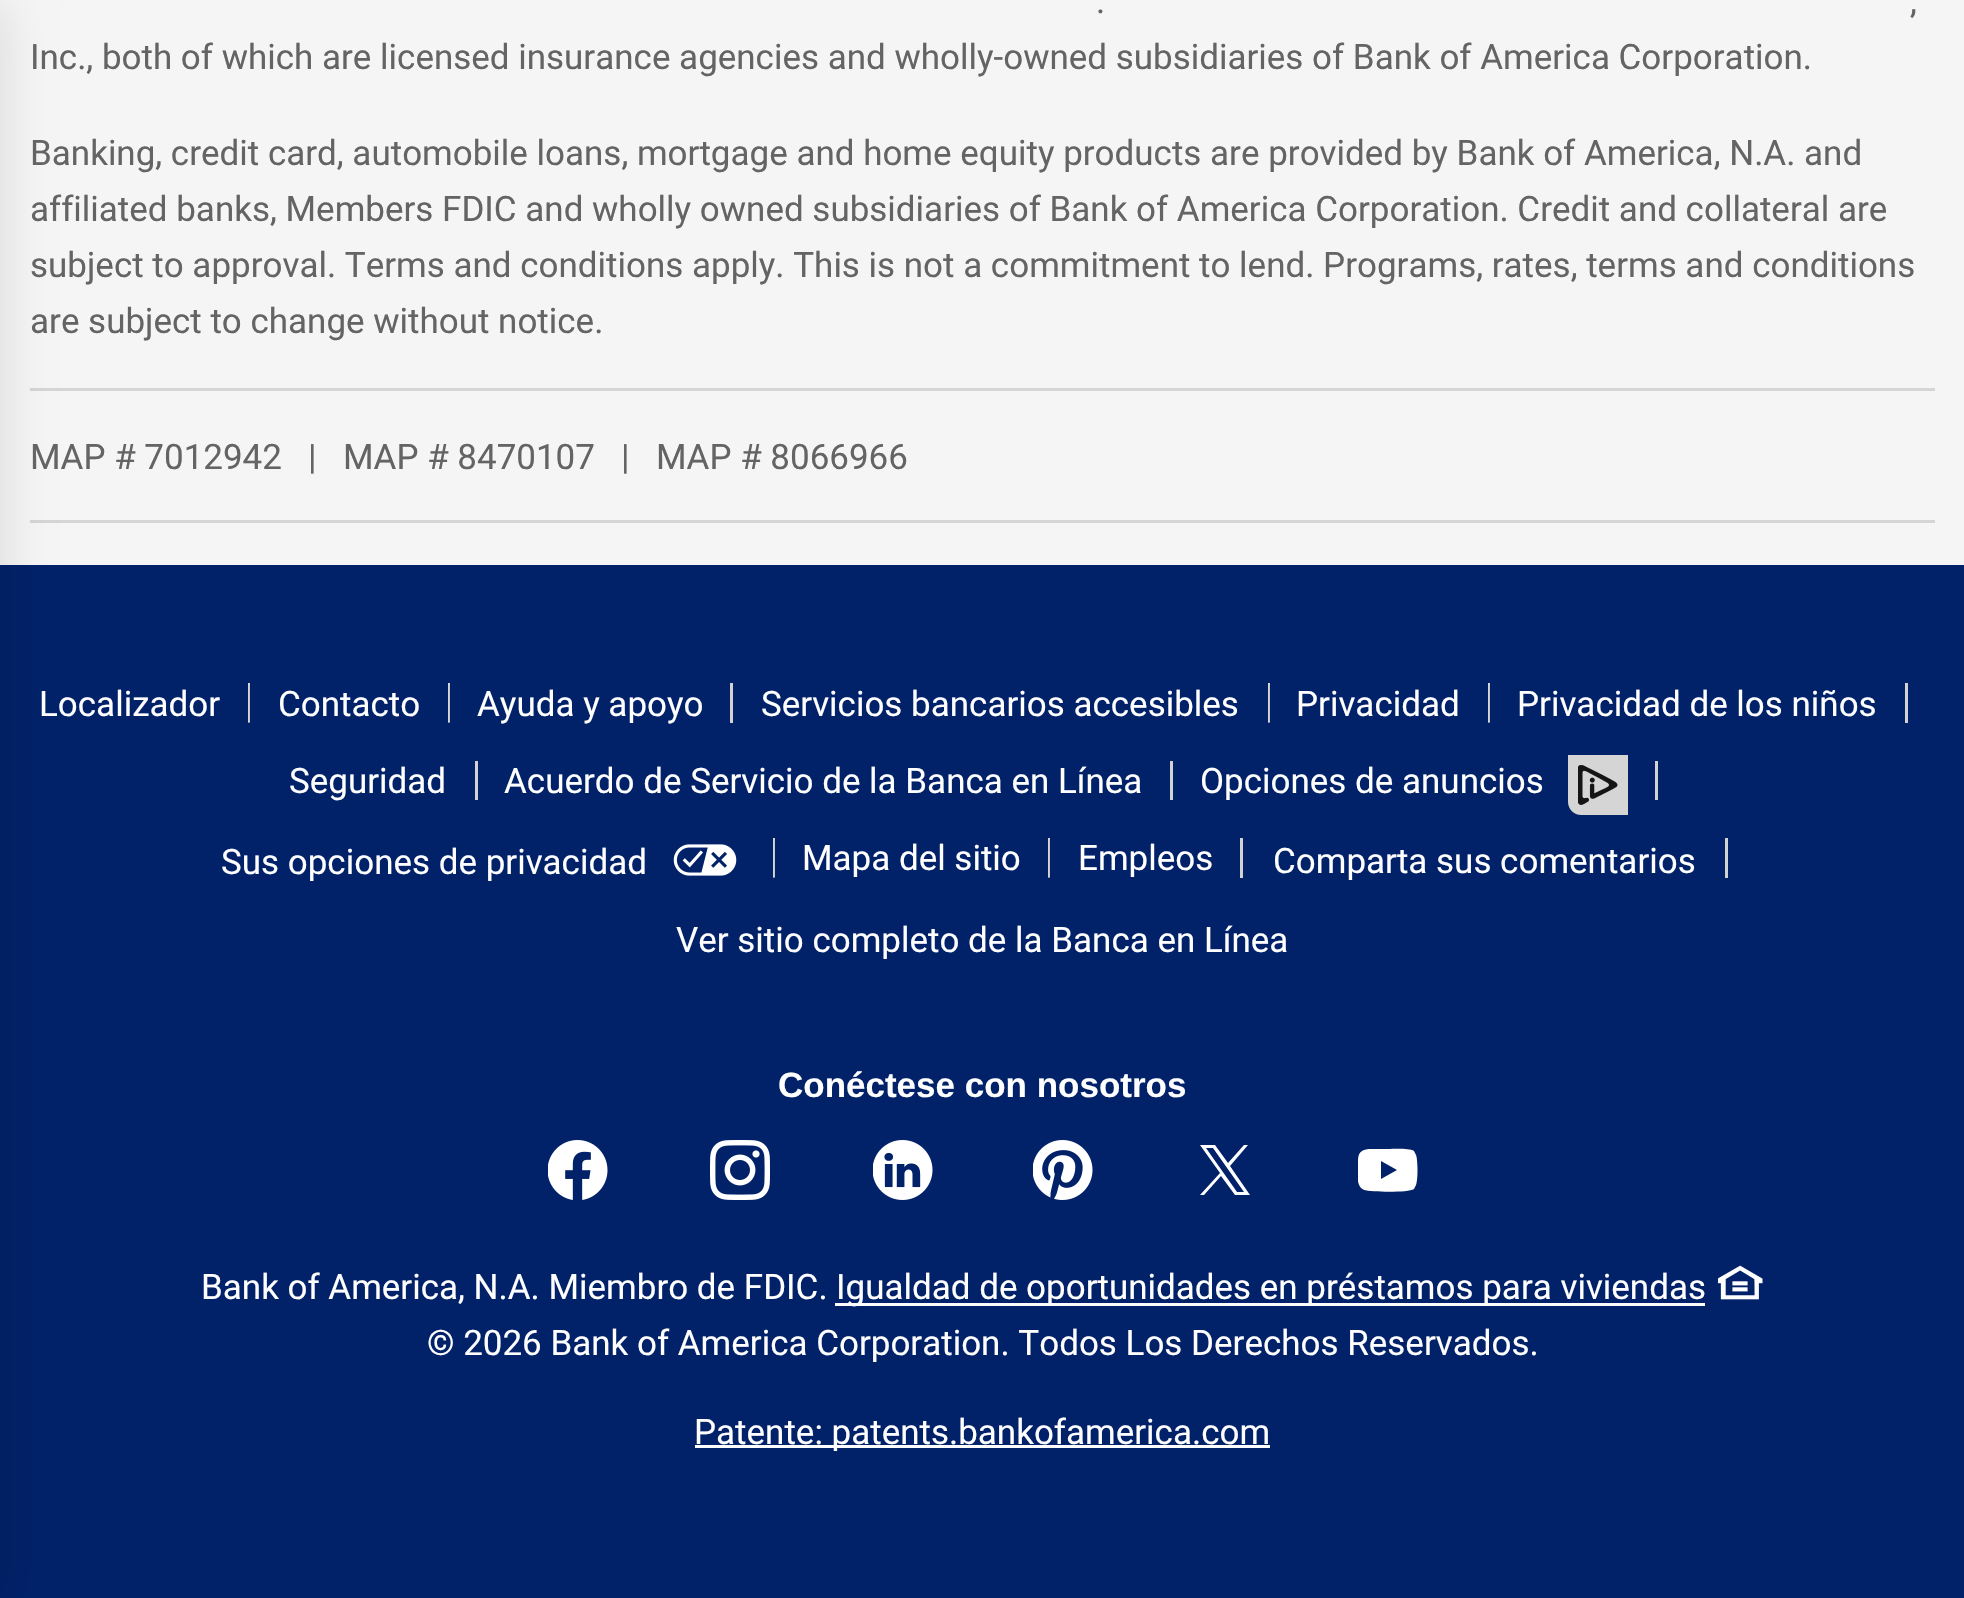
static SkFont makeFont(const char* family, int weight, float size, bool italic = false) {
  SkFontStyle style(weight, SkFontStyle::kNormal_Width,
    italic ? SkFontStyle::kItalic_Slant : SkFontStyle::kUpright_Slant);
  SkFont result(fontMgr->matchFamilyStyle(family, style), size);
  result.setSubpixel(true);
  return result;
}

static void text(SkCanvas* c, const char* s, float x, float y, const SkFont& font, SkColor color) {
  SkPaint ink(SkColor4f::FromColor(color));
  ink.setAntiAlias(true);
  c->drawString(s, x, y, font, ink);
}

static void box(SkCanvas* c, float l, float t, float r, float b, SkColor color) {
  SkPaint ink(SkColor4f::FromColor(color));
  ink.setAntiAlias(true);
  c->drawRect(SkRect::MakeLTRB(l, t, r, b), ink);
}

static void picture(SkCanvas* c, const char* path, float l, float t, float r, float b) {
  auto image = SkImages::DeferredFromEncodedData(SkData::MakeFromFileName(path));
  c->drawImageRect(image, SkRect::MakeLTRB(l, t, r, b), SkSamplingOptions());
}

void draw(SkCanvas* c) {
  SkPaint paint;
  paint.setAntiAlias(true);
  c->clear(0xfff5f5f5);
  box(c, 30, 388, 1935, 391, 0xffd5d5d5);
  box(c, 30, 520, 1935, 523, 0xffd5d5d5);
  box(c, 0, 565, 1964, 1598, 0xff012169);
  paint.setColor(0x1f000000);
  paint.setMaskFilter(SkMaskFilter::MakeBlur(kNormal_SkBlurStyle, 25));
  c->drawRect(SkRect::MakeLTRB(-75, 5, 0, 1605), paint);
  paint.setMaskFilter(nullptr);
  SkFont face1 = makeFont("Roboto", 400, 35);
  text(c, ".", 1096, 13, face1, 0xff646464);
  text(c, ",", 1910, 13, face1, 0xff646464);
  text(c, "Inc., both of which are licensed insurance agencies and wholly-owned subsidiaries of Bank of America Corporation.", 30, 69, face1, 0xff646464);
  text(c, "Banking, credit card, automobile loans, mortgage and home equity products are provided by Bank of America, N.A. and", 30, 165, face1, 0xff646464);
  text(c, "affiliated banks, Members FDIC and wholly owned subsidiaries of Bank of America Corporation. Credit and collateral are", 30, 221, face1, 0xff646464);
  text(c, "subject to approval. Terms and conditions apply. This is not a commitment to lend. Programs, rates, terms and conditions", 30, 277, face1, 0xff646464);
  text(c, "are subject to change without notice.", 30, 333, face1, 0xff646464);
  text(c, "MAP # 7012942", 30, 469, face1, 0xff646464);
  text(c, "|", 308, 469, face1, 0xff646464);
  text(c, "MAP # 8470107", 343, 469, face1, 0xff646464);
  text(c, "|", 621, 469, face1, 0xff646464);
  text(c, "MAP # 8066966", 656, 469, face1, 0xff646464);
  text(c, "Localizador", 39, 716, face1, 0xffffffff);
  picture(c, "img_01.png", 248, 683, 250, 723);
  text(c, "Contacto", 278, 716, face1, 0xffffffff);
  picture(c, "img_01.png", 448, 683, 450, 723);
  text(c, "Ayuda y apoyo", 477, 716, face1, 0xffffffff);
  box(c, 730, 683, 733, 723, 0xffd2d2d2);
  text(c, "Servicios bancarios accesibles", 761, 716, face1, 0xffffffff);
  picture(c, "img_01.png", 1268, 683, 1270, 723);
  text(c, "Privacidad", 1296, 716, face1, 0xffffffff);
  picture(c, "img_01.png", 1488, 683, 1490, 723);
  text(c, "Privacidad de los niños", 1517, 716, face1, 0xffffffff);
  box(c, 1905, 683, 1908, 723, 0xffd2d2d2);
  text(c, "Seguridad", 289, 793, face1, 0xffffffff);
  box(c, 475, 761, 478, 800, 0xffd2d2d2);
  text(c, "Acuerdo de Servicio de la Banca en Línea", 504, 793, face1, 0xffffffff);
  box(c, 1170, 761, 1173, 800, 0xffd2d2d2);
  text(c, "Opciones de anuncios", 1200, 793, face1, 0xffffffff);
  paint.setColor(0xffd5d5d5);
  c->drawPath(SkPathBuilder().moveTo(1568, 755).lineTo(1628, 755).lineTo(1628, 815).lineTo(1581, 815).cubicTo(1574, 815, 1568, 809, 1568, 802).close().detach(), paint);
  picture(c, "img_02.png", 1578, 765, 1618, 805);
  box(c, 1655, 761, 1658, 800, 0xffd2d2d2);
  text(c, "Sus opciones de privacidad", 221, 874, face1, 0xffffffff);
  picture(c, "img_03.png", 673, 844, 737, 876);
  picture(c, "img_01.png", 773, 838, 775, 878);
  text(c, "Mapa del sitio", 802, 870, face1, 0xffffffff);
  picture(c, "img_01.png", 1048, 838, 1050, 878);
  text(c, "Empleos", 1078, 870, face1, 0xffffffff);
  box(c, 1240, 838, 1243, 878, 0xffd2d2d2);
  text(c, "Comparta sus comentarios", 1273, 873, face1, 0xffffffff);
  box(c, 1725, 838, 1728, 878, 0xffd2d2d2);
  text(c, "Ver sitio completo de la Banca en Línea", 676, 952, face1, 0xffffffff);
  SkFont face2 = makeFont("Liberation Sans", 700, 35);
  text(c, "Conéctese con nosotros", 778, 1097, face2, 0xffffffff);
  picture(c, "img_04.png", 548, 1140, 608, 1200);
  picture(c, "img_05.png", 710, 1140, 770, 1200);
  picture(c, "img_06.png", 873, 1140, 933, 1200);
  picture(c, "img_07.png", 1033, 1140, 1093, 1200);
  paint.setColor(0xffffffff);
  c->drawPath(SkPathBuilder(SkPathFillType::kEvenOdd).moveTo(1215, 1145).lineTo(1228, 1163).lineTo(1244, 1145).lineTo(1248, 1145).lineTo(1230, 1166).lineTo(1250, 1195).lineTo(1235, 1195).lineTo(1221, 1176).lineTo(1204, 1195).lineTo(1200, 1195).lineTo(1220, 1173).lineTo(1200, 1145).close().moveTo(1213, 1148).lineTo(1206, 1148).lineTo(1237, 1192).lineTo(1244, 1192).close().detach(), paint);
  c->save();
  c->clipRect(SkRect::MakeLTRB(1358, 1140, 1418, 1200));
  c->drawPath(SkPathBuilder(SkPathFillType::kEvenOdd).moveTo(1388, 1149).cubicTo(1394, 1149, 1409, 1148, 1414, 1151).lineTo(1416, 1155).cubicTo(1418, 1160, 1418, 1180, 1416, 1185).lineTo(1414, 1189).cubicTo(1408, 1193, 1371, 1192, 1364, 1190).lineTo(1361, 1188).cubicTo(1357, 1184, 1357, 1174, 1358, 1168).cubicTo(1358, 1157, 1357, 1150, 1369, 1149).lineTo(1387, 1149).close().moveTo(1381, 1161).lineTo(1381, 1179).lineTo(1397, 1170).close().detach(), paint);
  c->restore();
  text(c, "Bank of America, N.A. Miembro de FDIC.", 201, 1299, face1, 0xffffffff);
  box(c, 835, 1303, 1705, 1306, 0xffffffff);
  text(c, "Igualdad de oportunidades en préstamos para viviendas", 836, 1299, face1, 0xffffffff);
  picture(c, "img_08.png", 1718, 1265, 1763, 1300);
  text(c, "© 2026 Bank of America Corporation. Todos Los Derechos Reservados.", 427, 1355, face1, 0xffffffff);
  box(c, 695, 1445, 1270, 1448, 0xffffffff);
  text(c, "Patente: patents.bankofamerica.com", 694, 1444, face1, 0xffffffff);
}
